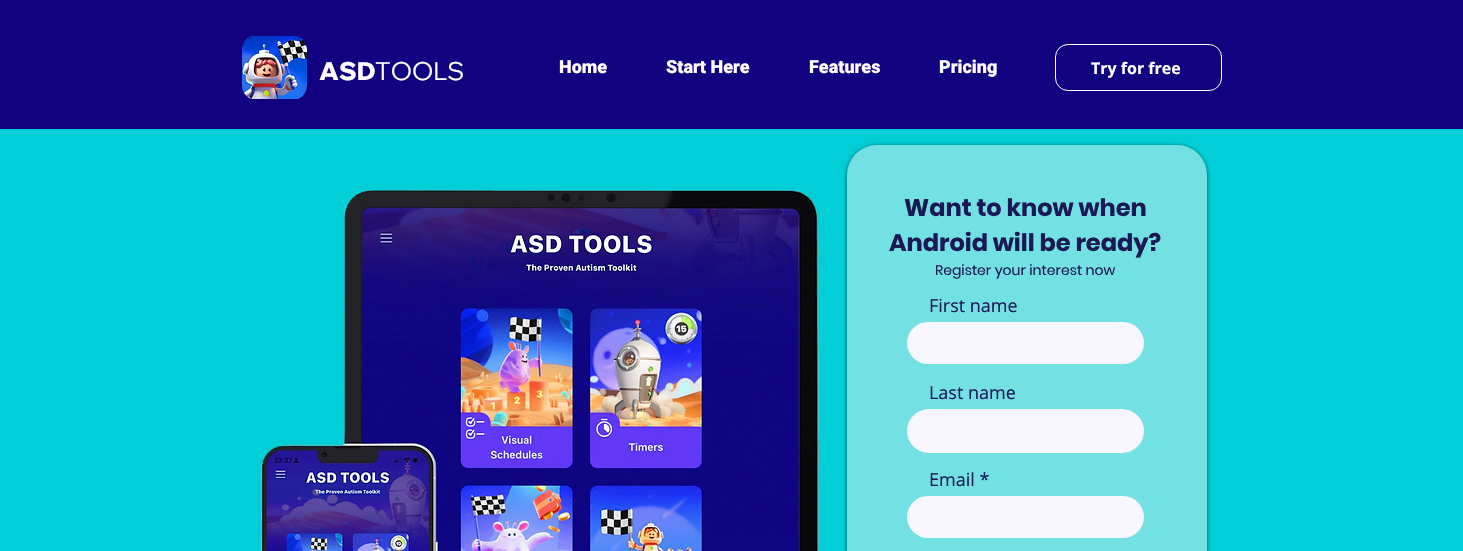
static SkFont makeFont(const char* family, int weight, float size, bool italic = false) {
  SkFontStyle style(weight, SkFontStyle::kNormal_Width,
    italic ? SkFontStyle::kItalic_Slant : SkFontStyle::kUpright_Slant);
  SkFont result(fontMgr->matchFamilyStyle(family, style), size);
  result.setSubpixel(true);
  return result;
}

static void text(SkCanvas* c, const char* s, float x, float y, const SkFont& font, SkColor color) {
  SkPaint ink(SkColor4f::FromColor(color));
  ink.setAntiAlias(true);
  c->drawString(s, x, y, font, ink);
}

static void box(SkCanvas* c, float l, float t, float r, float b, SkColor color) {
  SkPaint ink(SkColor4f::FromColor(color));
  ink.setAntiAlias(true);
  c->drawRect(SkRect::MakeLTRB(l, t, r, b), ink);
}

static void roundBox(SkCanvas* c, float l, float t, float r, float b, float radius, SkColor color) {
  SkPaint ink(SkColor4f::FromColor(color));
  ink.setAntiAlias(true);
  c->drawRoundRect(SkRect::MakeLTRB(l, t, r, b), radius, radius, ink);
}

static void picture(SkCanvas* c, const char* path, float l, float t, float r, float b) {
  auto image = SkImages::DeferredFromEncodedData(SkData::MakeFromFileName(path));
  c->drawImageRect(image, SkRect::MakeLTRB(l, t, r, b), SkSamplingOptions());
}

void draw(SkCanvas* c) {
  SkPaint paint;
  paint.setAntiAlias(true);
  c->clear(0xff01ced7);
  box(c, 0, 0, 1463, 129, 0xff120280);
  picture(c, "img_01.png", 242, 36, 307, 99);
  SkFont face1 = makeFont("Wix Madefor Display", 800, 25);
  text(c, "ASD", 319, 80, face1, 0xffffffff);
  SkFont face2 = makeFont("Wix Madefor Display", 400, 25);
  text(c, "TOOLS", 375, 80, face2, 0xffffffff);
  SkFont face3 = makeFont("Roboto", 900, 18);
  text(c, "Home", 559, 73, face3, 0xffffffff);
  text(c, "Start Here", 666, 73, face3, 0xffffffff);
  text(c, "Features", 809, 73, face3, 0xffffffff);
  text(c, "Pricing", 939, 73, face3, 0xffffffff);
  paint.setStyle(SkPaint::kStroke_Style);
  paint.setStrokeWidth(1);
  paint.setColor(0xffffffff);
  c->drawRoundRect(SkRect::MakeLTRB(1055.5f, 44.5f, 1221.5f, 90.5f), 12.5f, 12.5f, paint);
  SkFont face4 = makeFont("Open Sans", 700, 16);
  text(c, "Try for free", 1091, 74, face4, 0xffffffff);
  picture(c, "img_02.png", 260, 189, 819, 551);
  paint.setStyle(SkPaint::kFill_Style);
  paint.setColor(0x99000000);
  paint.setMaskFilter(SkMaskFilter::MakeBlur(kNormal_SkBlurStyle, 2));
  c->drawRoundRect(SkRect::MakeLTRB(847, 146, 1207, 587), 30, 30, paint);
  paint.setMaskFilter(nullptr);
  roundBox(c, 847, 145, 1207, 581, 30, 0xff73e0e4);
  SkFont face5 = makeFont("Poppins", 700, 24);
  text(c, "Want to know when", 904, 216, face5, 0xff1a1855);
  text(c, "Android will be ready?", 889, 251, face5, 0xff1a1855);
  SkFont face6 = makeFont("Poppins", 400, 14);
  text(c, "Register your interest now", 935, 275, face6, 0xff1a1855);
  SkFont face7 = makeFont("Open Sans", 400, 18);
  text(c, "First name", 929, 312, face7, 0xff1a1855);
  roundBox(c, 907, 322, 1144, 364, 21, 0xfff8f7ff);
  text(c, "Last name", 929, 399, face7, 0xff1a1855);
  roundBox(c, 907, 409, 1144, 453, 22, 0xfff8f7ff);
  text(c, "Email *", 929, 486, face7, 0xff1a1855);
  roundBox(c, 907, 496, 1144, 538, 21, 0xfff8f7ff);
}
